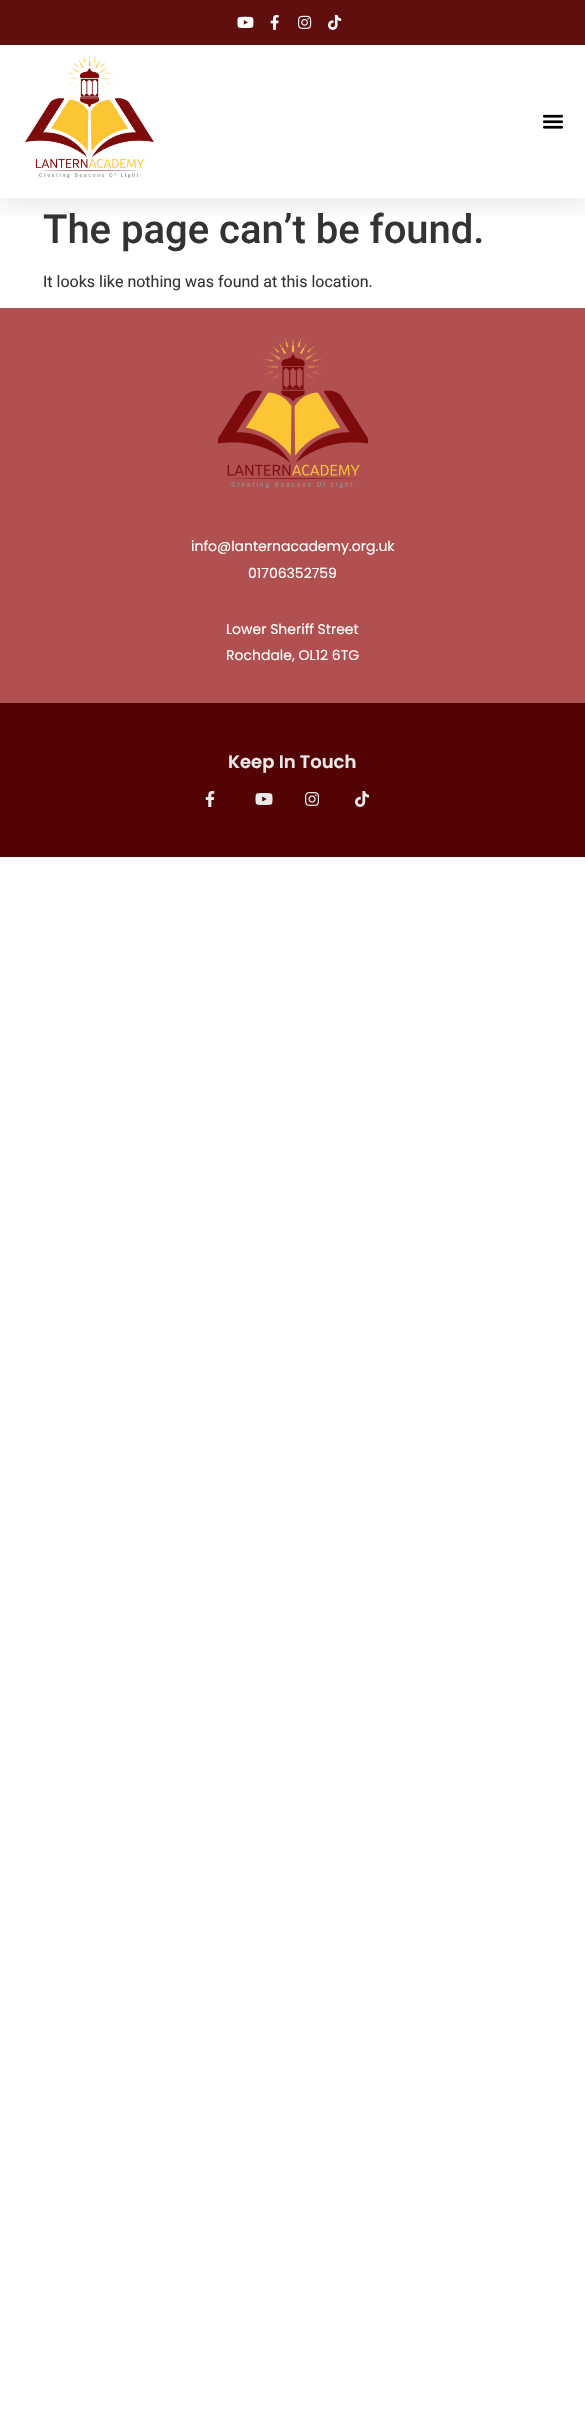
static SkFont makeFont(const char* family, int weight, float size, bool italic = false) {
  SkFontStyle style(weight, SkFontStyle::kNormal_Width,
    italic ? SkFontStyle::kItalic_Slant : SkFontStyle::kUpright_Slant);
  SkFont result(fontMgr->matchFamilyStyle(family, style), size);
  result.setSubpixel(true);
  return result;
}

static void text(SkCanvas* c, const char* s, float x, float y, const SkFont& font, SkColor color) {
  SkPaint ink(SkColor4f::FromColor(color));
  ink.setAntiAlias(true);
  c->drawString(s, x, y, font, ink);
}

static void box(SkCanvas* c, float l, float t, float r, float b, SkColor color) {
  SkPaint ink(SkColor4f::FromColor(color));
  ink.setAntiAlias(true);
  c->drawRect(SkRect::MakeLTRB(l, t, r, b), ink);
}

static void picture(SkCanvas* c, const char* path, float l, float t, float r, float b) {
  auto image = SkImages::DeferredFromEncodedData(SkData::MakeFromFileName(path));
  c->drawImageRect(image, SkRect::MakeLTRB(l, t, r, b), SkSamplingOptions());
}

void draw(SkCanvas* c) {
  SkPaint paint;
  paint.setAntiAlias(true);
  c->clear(0xffffffff);
  c->save();
  c->clipRect(SkRect::MakeLTRB(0, 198, 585, 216));
  paint.setColor(0x1a000000);
  paint.setMaskFilter(SkMaskFilter::MakeBlur(kNormal_SkBlurStyle, 15));
  c->drawRect(SkRect::MakeLTRB(0, 5, 585, 203), paint);
  paint.setMaskFilter(nullptr);
  c->restore();
  box(c, 0, 0, 585, 45, 0xff610e0e);
  picture(c, "img_01.png", 237, 16, 254, 28);
  picture(c, "img_02.png", 270, 15, 279, 30);
  picture(c, "img_03.png", 298, 15, 312, 29);
  picture(c, "img_04.png", 328, 15, 342, 30);
  picture(c, "img_05.png", 25, 55, 154, 178);
  picture(c, "img_06.png", 542, 114, 564, 129);
  SkFont face1 = makeFont("Roboto", 500, 40);
  text(c, "The page can’t be found.", 43, 243, face1, 0xff333333);
  SkFont face2 = makeFont("Roboto", 400, 16);
  text(c, "It looks like nothing was found at this location.", 43, 287, face2, 0xff333333);
  box(c, 0, 308, 585, 703, 0xffb15050);
  picture(c, "img_07.png", 218, 338, 368, 488);
  SkFont face3 = makeFont("Poppins", 400, 14);
  text(c, "info@lanternacademy.org.uk", 191, 551, face3, 0xffffffff);
  text(c, "01706352759", 248, 578, face3, 0xffffffff);
  text(c, "Lower Sheriff Street", 226, 634, face3, 0xffffffff);
  text(c, "Rochdale, OL12 6TG", 226, 660, face3, 0xffffffff);
  box(c, 0, 703, 585, 857, 0xff530303);
  SkFont face4 = makeFont("Poppins", 600, 18);
  text(c, "Keep In Touch", 228, 768, face4, 0xffe9e9e9);
  picture(c, "img_08.png", 205, 791, 215, 807);
  picture(c, "img_09.png", 255, 793, 273, 805);
  picture(c, "img_10.png", 305, 792, 320, 806);
  picture(c, "img_11.png", 355, 791, 369, 807);
}
